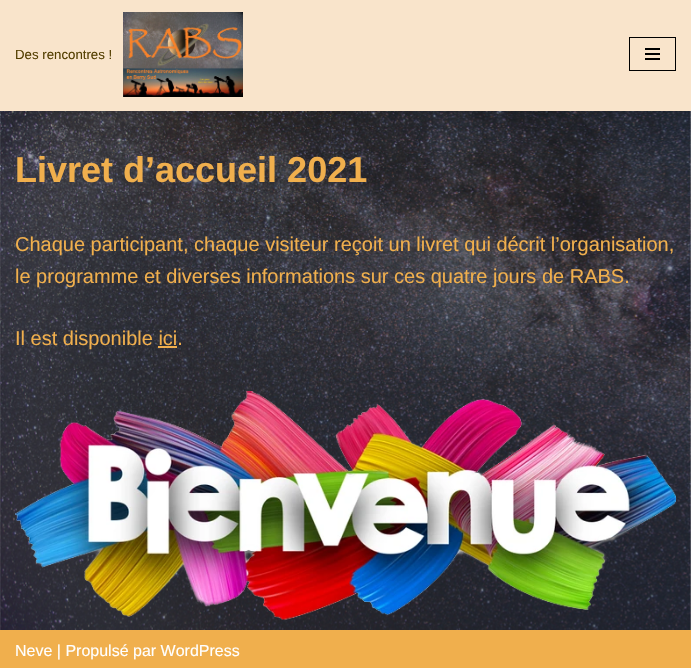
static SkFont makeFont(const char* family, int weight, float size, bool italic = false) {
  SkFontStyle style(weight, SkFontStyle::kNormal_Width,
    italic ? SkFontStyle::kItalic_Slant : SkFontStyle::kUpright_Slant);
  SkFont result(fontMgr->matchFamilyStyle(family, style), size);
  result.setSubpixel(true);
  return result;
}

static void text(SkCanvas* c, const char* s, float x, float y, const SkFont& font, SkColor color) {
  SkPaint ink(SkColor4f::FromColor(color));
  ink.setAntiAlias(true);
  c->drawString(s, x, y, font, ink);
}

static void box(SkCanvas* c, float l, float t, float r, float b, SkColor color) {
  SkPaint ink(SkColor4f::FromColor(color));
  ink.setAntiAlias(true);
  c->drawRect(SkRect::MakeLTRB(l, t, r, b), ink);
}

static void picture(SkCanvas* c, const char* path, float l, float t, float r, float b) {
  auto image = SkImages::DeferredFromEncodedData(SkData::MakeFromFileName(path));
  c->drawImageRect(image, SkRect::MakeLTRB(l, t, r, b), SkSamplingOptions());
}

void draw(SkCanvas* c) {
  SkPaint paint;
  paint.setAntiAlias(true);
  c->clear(0xffffffff);
  picture(c, "img_01.png", 0, 111, 691, 630);
  box(c, 0, 0, 691, 111, 0xfff9e4cb);
  SkFont face1 = makeFont("Liberation Sans", 400, 13.25f);
  text(c, "Des rencontres !", 15, 59, face1, 0xff543f01);
  picture(c, "img_02.png", 123, 12, 243, 97);
  paint.setStyle(SkPaint::kStroke_Style);
  paint.setStrokeWidth(1);
  paint.setColor(0xff000000);
  c->drawRect(SkRect::MakeLTRB(629.5f, 37.5f, 675.5f, 70.5f), paint);
  box(c, 645, 48, 660, 50, 0xff000000);
  box(c, 645, 53, 660, 55, 0xff000000);
  box(c, 645, 58, 660, 60, 0xff000000);
  SkFont face2 = makeFont("Liberation Sans", 700, 36);
  text(c, "Livret d’accueil 2021", 15, 182, face2, 0xfff0af4d);
  SkFont face3 = makeFont("Liberation Sans", 400, 20);
  text(c, "Chaque participant, chaque visiteur reçoit un livret qui décrit l’organisation,", 15, 251, face3, 0xfff0af4d);
  text(c, "le programme et diverses informations sur ces quatre jours de RABS.", 15, 283, face3, 0xfff0af4d);
  text(c, "Il est disponible ici.", 15, 345, face3, 0xfff0af4d);
  box(c, 158, 346, 177, 348, 0xfff0af4d);
  picture(c, "img_03.png", 15, 391, 676, 620);
  box(c, 0, 630, 691, 668, 0xfff0af4d);
  SkFont face4 = makeFont("Liberation Sans", 400, 16);
  text(c, "Neve | Propulsé par WordPress", 15, 656, face4, 0xffffffff);
}
